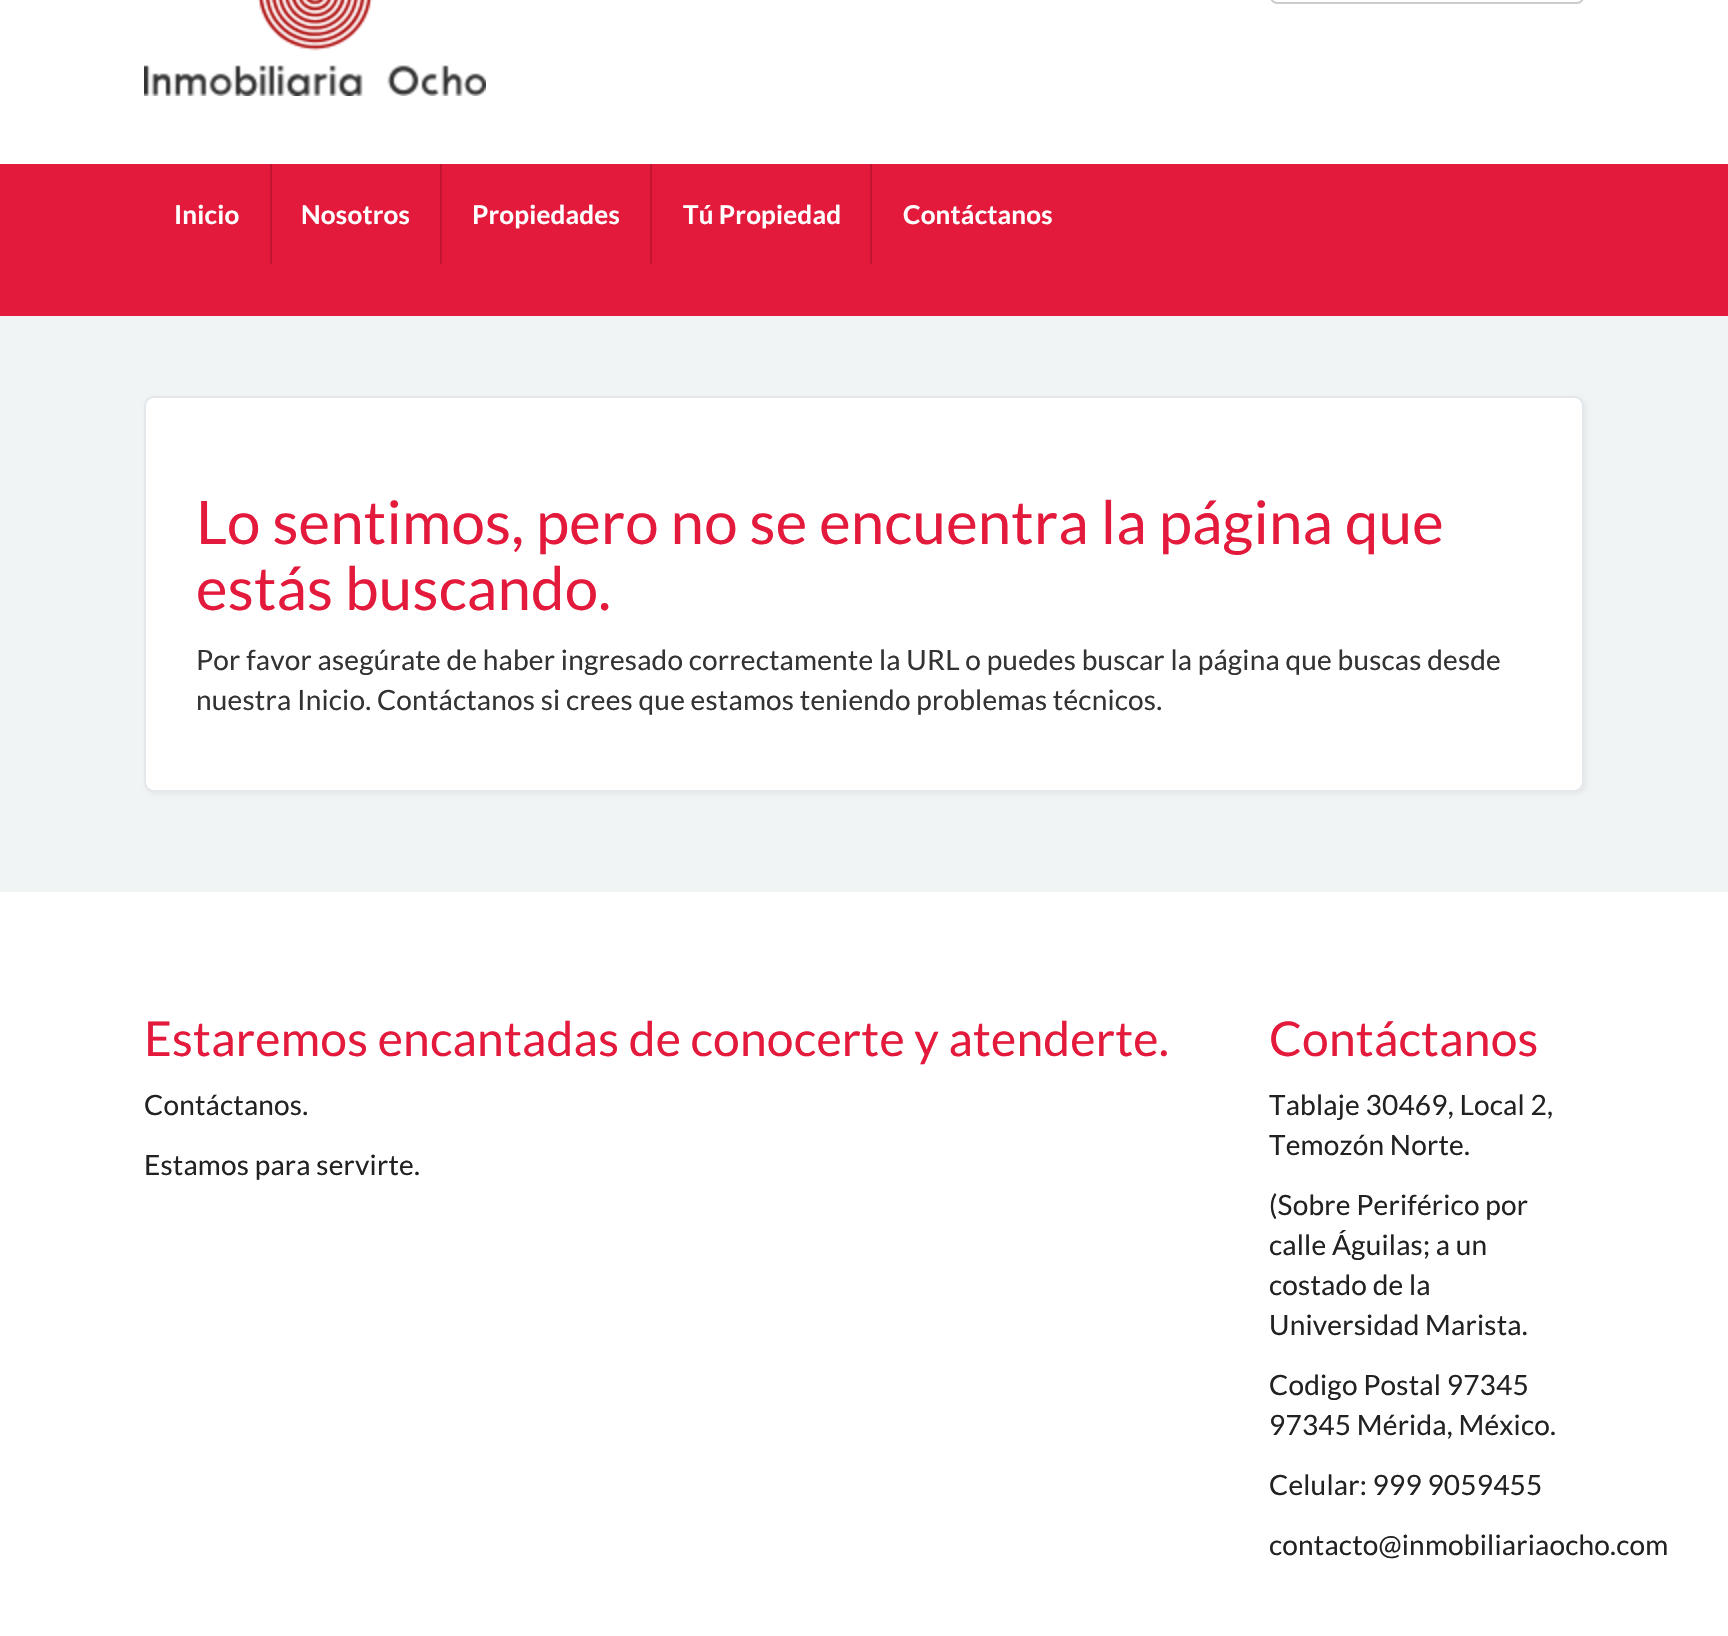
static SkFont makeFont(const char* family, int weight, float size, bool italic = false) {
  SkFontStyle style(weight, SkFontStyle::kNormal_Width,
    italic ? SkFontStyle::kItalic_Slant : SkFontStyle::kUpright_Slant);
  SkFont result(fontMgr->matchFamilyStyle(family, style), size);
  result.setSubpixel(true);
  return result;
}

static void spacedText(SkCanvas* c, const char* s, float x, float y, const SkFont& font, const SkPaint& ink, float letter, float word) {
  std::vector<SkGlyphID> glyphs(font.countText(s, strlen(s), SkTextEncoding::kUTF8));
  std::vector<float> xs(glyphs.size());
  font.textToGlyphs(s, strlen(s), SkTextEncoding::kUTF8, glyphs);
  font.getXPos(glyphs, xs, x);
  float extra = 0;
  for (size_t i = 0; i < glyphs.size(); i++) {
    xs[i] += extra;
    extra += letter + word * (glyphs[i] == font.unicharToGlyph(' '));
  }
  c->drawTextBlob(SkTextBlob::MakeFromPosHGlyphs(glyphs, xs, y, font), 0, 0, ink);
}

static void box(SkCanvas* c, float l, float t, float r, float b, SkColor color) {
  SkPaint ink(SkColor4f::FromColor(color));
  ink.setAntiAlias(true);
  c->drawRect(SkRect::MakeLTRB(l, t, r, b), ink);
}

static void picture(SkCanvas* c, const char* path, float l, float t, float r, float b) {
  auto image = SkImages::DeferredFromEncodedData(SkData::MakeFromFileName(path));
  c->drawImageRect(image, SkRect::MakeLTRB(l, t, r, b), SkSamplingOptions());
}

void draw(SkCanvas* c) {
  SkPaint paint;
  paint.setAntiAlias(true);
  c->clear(0xfff1f4f5);
  box(c, 0, 0, 1728, 164, 0xffffffff);
  paint.setStyle(SkPaint::kStroke_Style);
  paint.setStrokeWidth(2);
  paint.setColor(0xffcccccc);
  c->drawRoundRect(SkRect::MakeLTRB(1271, -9, 1583, 3), 7, 7, paint);
  picture(c, "img_01.png", 144, 0, 486, 96);
  box(c, 0, 164, 1728, 316, 0xffe31a3b);
  box(c, 270, 164, 272, 264, 0xffc11632);
  SkFont face1 = makeFont("Lato", 700, 26);
  paint.setStyle(SkPaint::kFill_Style);
  paint.setColor(0xffffffff);
  spacedText(c, "Inicio", 174, 224, face1, paint, 0.2f, 0);
  box(c, 440, 164, 442, 264, 0xffc11632);
  spacedText(c, "Nosotros", 301, 224, face1, paint, 0.2f, 0);
  box(c, 650, 164, 652, 264, 0xffc11632);
  spacedText(c, "Propiedades", 472, 224, face1, paint, 0.2f, 0);
  box(c, 870, 164, 872, 264, 0xffc11632);
  spacedText(c, "Tú Propiedad", 683, 224, face1, paint, 0.2f, 0);
  spacedText(c, "Contáctanos", 903, 224, face1, paint, 0.2f, 0);
  paint.setColor(0x0d000000);
  paint.setMaskFilter(SkMaskFilter::MakeBlur(kNormal_SkBlurStyle, 2));
  c->drawRoundRect(SkRect::MakeLTRB(146, 398, 1586, 794), 10, 10, paint);
  paint.setMaskFilter(nullptr);
  paint.setColor(0xffffffff);
  c->drawRoundRect(SkRect::MakeLTRB(145, 397, 1583, 791), 9, 9, paint);
  paint.setStyle(SkPaint::kStroke_Style);
  paint.setColor(0xffe4e8eb);
  c->drawRoundRect(SkRect::MakeLTRB(145, 397, 1583, 791), 9, 9, paint);
  SkFont face2 = makeFont("Lato", 400, 60);
  paint.setStyle(SkPaint::kFill_Style);
  paint.setColor(0xffe31a3b);
  spacedText(c, "Lo sentimos, pero no se encuentra la página que", 196, 544, face2, paint, 0.2f, 0);
  spacedText(c, "estás buscando.", 196, 610, face2, paint, 0.2f, 0);
  SkFont face3 = makeFont("Lato", 400, 28);
  paint.setColor(0xff333333);
  spacedText(c, "Por favor asegúrate de haber ingresado correctamente la URL o puedes buscar la página que buscas desde", 196, 670, face3, paint, 0.2f, 0);
  spacedText(c, "nuestra Inicio. Contáctanos si crees que estamos teniendo problemas técnicos.", 196, 710, face3, paint, 0.2f, 0);
  box(c, 0, 892, 1728, 1636, 0xffffffff);
  SkFont face4 = makeFont("Lato", 400, 48);
  paint.setColor(0xffe31a3b);
  spacedText(c, "Estaremos encantadas de conocerte y atenderte.", 144, 1056, face4, paint, 0.2f, 0);
  paint.setColor(0xff222222);
  spacedText(c, "Contáctanos.", 144, 1115, face3, paint, 0.2f, 0);
  spacedText(c, "Estamos para servirte.", 144, 1175, face3, paint, 0.2f, 0);
  paint.setColor(0xffe31a3b);
  spacedText(c, "Contáctanos", 1269, 1056, face4, paint, 0.2f, 0);
  paint.setColor(0xff222222);
  spacedText(c, "Tablaje 30469, Local 2,", 1269, 1115, face3, paint, 0.2f, 0);
  spacedText(c, "Temozón Norte.", 1269, 1155, face3, paint, 0.2f, 0);
  spacedText(c, "(Sobre Periférico por", 1269, 1215, face3, paint, 0.2f, 0);
  spacedText(c, "calle Águilas; a un", 1269, 1255, face3, paint, 0.2f, 0);
  spacedText(c, "costado de la", 1269, 1295, face3, paint, 0.2f, 0);
  spacedText(c, "Universidad Marista.", 1269, 1335, face3, paint, 0.2f, 0);
  spacedText(c, "Codigo Postal 97345", 1269, 1395, face3, paint, 0.2f, 0);
  spacedText(c, "97345 Mérida, México.", 1269, 1435, face3, paint, 0.2f, 0);
  spacedText(c, "Celular: 999 9059455", 1269, 1495, face3, paint, 0.2f, 0);
  spacedText(c, "contacto@inmobiliariaocho.com", 1269, 1555, face3, paint, 0.2f, 0);
}
